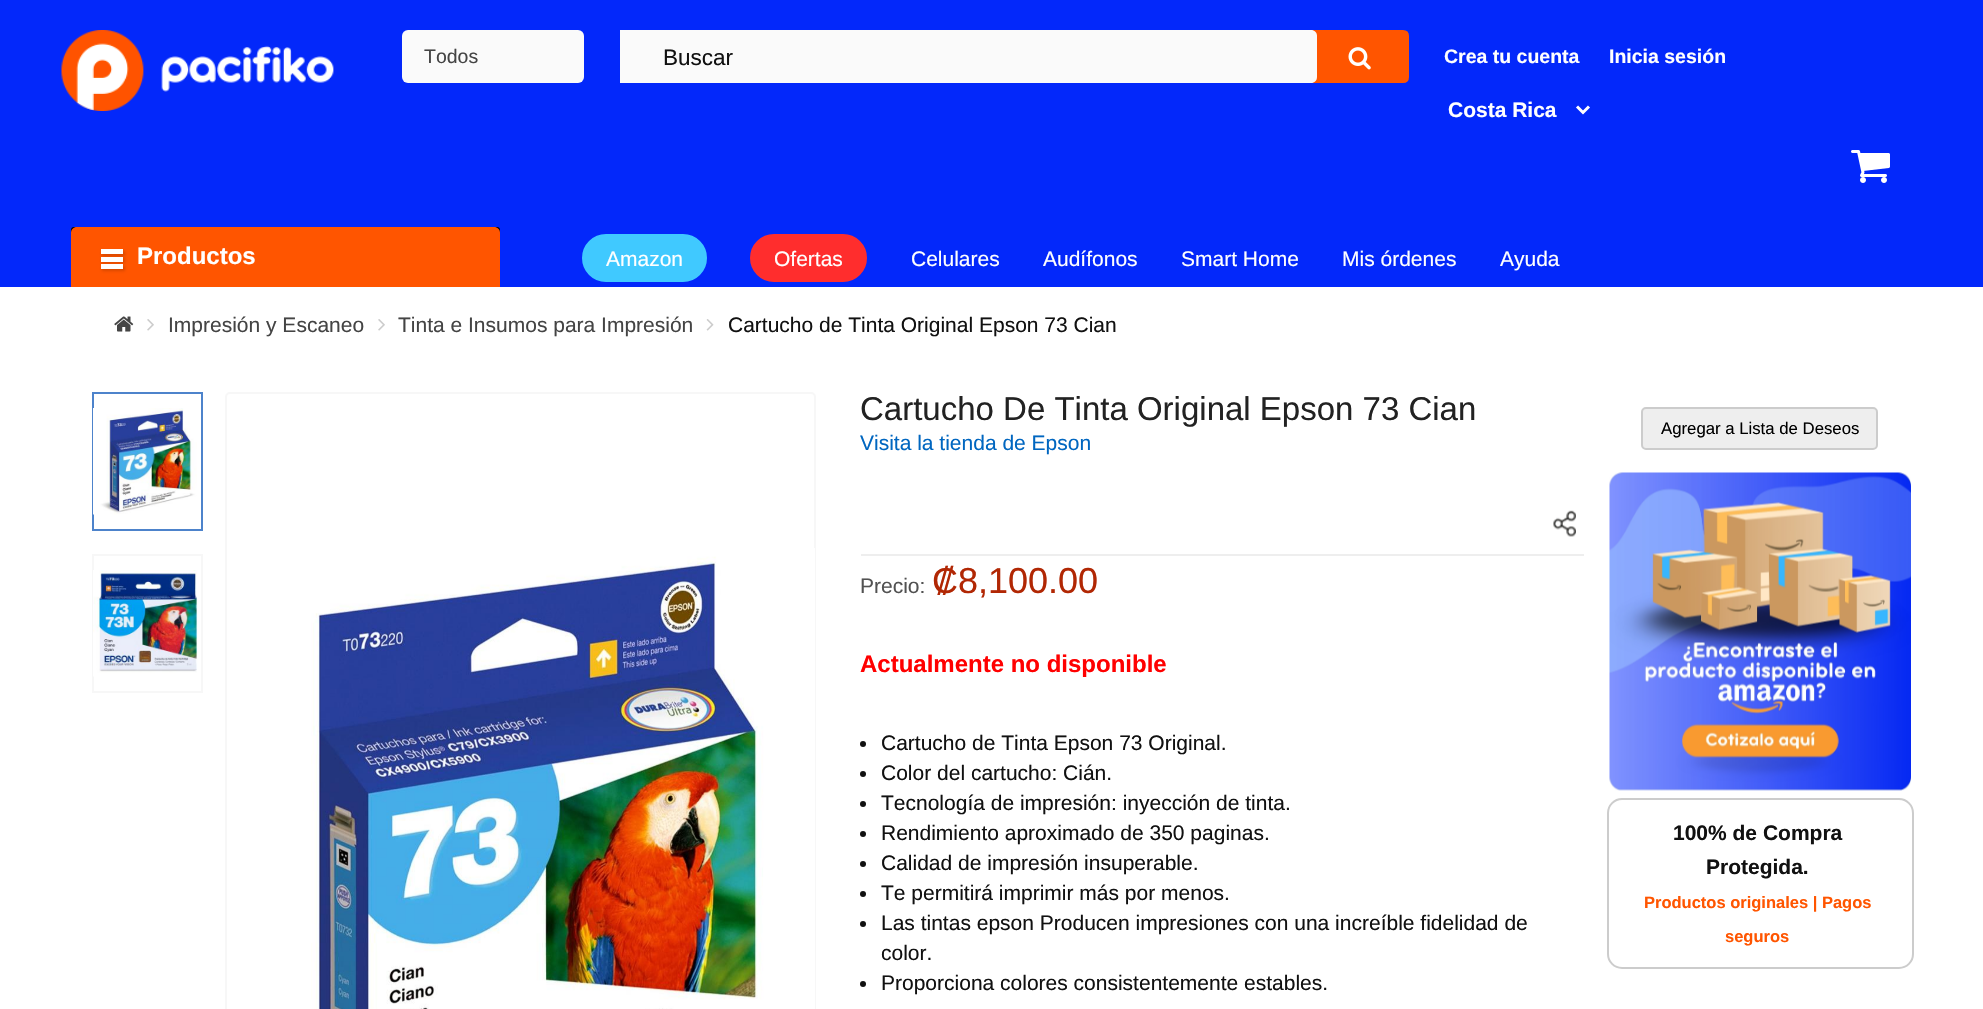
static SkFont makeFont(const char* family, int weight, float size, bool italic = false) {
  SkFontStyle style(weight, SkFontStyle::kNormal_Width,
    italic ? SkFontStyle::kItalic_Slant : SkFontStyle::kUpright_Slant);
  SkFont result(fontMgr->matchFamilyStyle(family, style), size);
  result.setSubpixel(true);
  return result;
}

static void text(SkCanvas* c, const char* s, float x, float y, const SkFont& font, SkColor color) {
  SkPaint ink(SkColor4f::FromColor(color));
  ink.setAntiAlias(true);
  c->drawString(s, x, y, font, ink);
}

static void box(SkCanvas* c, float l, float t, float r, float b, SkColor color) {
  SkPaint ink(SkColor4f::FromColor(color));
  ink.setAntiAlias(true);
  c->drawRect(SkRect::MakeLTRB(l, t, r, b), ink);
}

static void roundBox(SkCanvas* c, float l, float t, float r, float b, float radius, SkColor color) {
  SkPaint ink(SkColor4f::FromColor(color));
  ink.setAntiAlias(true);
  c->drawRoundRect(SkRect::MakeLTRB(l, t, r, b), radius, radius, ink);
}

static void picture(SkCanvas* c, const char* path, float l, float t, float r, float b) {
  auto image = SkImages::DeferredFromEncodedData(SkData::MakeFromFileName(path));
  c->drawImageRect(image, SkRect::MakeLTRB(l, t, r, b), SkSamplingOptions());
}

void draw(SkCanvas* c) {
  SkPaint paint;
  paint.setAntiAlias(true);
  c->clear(0xffffffff);
  box(c, 0, 0, 1983, 287, 0xff0328fa);
  picture(c, "img_01.png", 61, 30, 334, 111);
  roundBox(c, 402, 30, 584, 83, 6, 0xfffafafa);
  SkFont face1 = makeFont("Liberation Sans", 400, 19.5f);
  text(c, "Todos", 424, 63, face1, 0xff444444);
  box(c, 620, 30, 633, 83, 0xfffafafa);
  paint.setColor(0xffff5500);
  c->drawPath(SkPathBuilder().moveTo(1311, 31).lineTo(1403, 31).cubicTo(1406, 31, 1408, 33, 1408, 36).lineTo(1408, 77).cubicTo(1408, 80, 1406, 82, 1403, 82).lineTo(1311, 82).close().detach(), paint);
  paint.setStyle(SkPaint::kStroke_Style);
  paint.setStrokeWidth(2);
  c->drawPath(SkPathBuilder().moveTo(1311, 31).lineTo(1403, 31).cubicTo(1406, 31, 1408, 33, 1408, 36).lineTo(1408, 77).cubicTo(1408, 80, 1406, 82, 1403, 82).lineTo(1311, 82).close().detach(), paint);
  paint.setStyle(SkPaint::kFill_Style);
  paint.setColor(0xfffafafa);
  c->drawPath(SkPathBuilder().moveTo(633, 30).lineTo(1311, 30).cubicTo(1314.5f, 30, 1317, 32.5f, 1317, 36).lineTo(1317, 77).cubicTo(1317, 80.5f, 1314.5f, 83, 1311, 83).lineTo(633, 83).close().detach(), paint);
  SkFont face2 = makeFont("Liberation Sans", 400, 22.5f);
  text(c, "Buscar", 663, 65, face2, 0xff111111);
  picture(c, "img_02.png", 1348, 47, 1371, 70);
  SkFont face3 = makeFont("Liberation Sans", 700, 19.5f);
  text(c, "Crea tu cuenta", 1444, 63, face3, 0xffffffff);
  text(c, "Inicia sesión", 1609, 63, face3, 0xffffffff);
  paint.setStyle(SkPaint::kStroke_Style);
  paint.setStrokeWidth(3);
  paint.setColor(0xffffffff);
  c->drawPath(SkPathBuilder().moveTo(1577, 106.5f).lineTo(1583, 112.5f).lineTo(1589, 106.5f).detach(), paint);
  SkFont face4 = makeFont("Liberation Sans", 700, 21);
  text(c, "Costa Rica", 1448, 117, face4, 0xffffffff);
  picture(c, "img_03.png", 1851, 150, 1890, 183);
  roundBox(c, 71, 227, 500, 287, 3, 0xff000000);
  paint.setStyle(SkPaint::kFill_Style);
  paint.setColor(0xffff5500);
  c->drawPath(SkPathBuilder().moveTo(77, 227).lineTo(494, 227).cubicTo(497.5f, 227, 500, 229.5f, 500, 233).lineTo(500, 287).lineTo(71, 287).lineTo(71, 233).cubicTo(71, 229.5f, 73.5f, 227, 77, 227).close().detach(), paint);
  paint.setColor(0x26000000);
  paint.setMaskFilter(SkMaskFilter::MakeBlur(kNormal_SkBlurStyle, 1.5f));
  c->drawRect(SkRect::MakeLTRB(102, 251, 125, 256), paint);
  paint.setMaskFilter(nullptr);
  box(c, 101, 249, 123, 254, 0xffffffff);
  paint.setMaskFilter(SkMaskFilter::MakeBlur(kNormal_SkBlurStyle, 1.5f));
  c->drawRect(SkRect::MakeLTRB(102, 258, 125, 263), paint);
  paint.setMaskFilter(nullptr);
  box(c, 101, 257, 123, 262, 0xffffffff);
  paint.setMaskFilter(SkMaskFilter::MakeBlur(kNormal_SkBlurStyle, 1.5f));
  c->drawRect(SkRect::MakeLTRB(102, 266, 125, 271), paint);
  paint.setMaskFilter(nullptr);
  box(c, 101, 264, 123, 269, 0xffffffff);
  SkFont face5 = makeFont("Liberation Sans", 700, 24);
  text(c, "Productos", 137, 264, face5, 0xffffffff);
  paint.setColor(0xff40c9ff);
  c->drawRoundRect(SkRect::MakeLTRB(583, 235, 706, 281), 23, 23, paint);
  paint.setStyle(SkPaint::kStroke_Style);
  paint.setStrokeWidth(2);
  c->drawRoundRect(SkRect::MakeLTRB(583, 235, 706, 281), 23, 23, paint);
  SkFont face6 = makeFont("Liberation Sans", 400, 21);
  text(c, "Amazon", 606, 266, face6, 0xffffffff);
  paint.setStyle(SkPaint::kFill_Style);
  paint.setColor(0xffff2d2d);
  c->drawRoundRect(SkRect::MakeLTRB(751, 235, 866, 281), 23, 23, paint);
  paint.setStyle(SkPaint::kStroke_Style);
  c->drawRoundRect(SkRect::MakeLTRB(751, 235, 866, 281), 23, 23, paint);
  text(c, "Ofertas", 774, 266, face6, 0xffffffff);
  text(c, "Celulares", 911, 266, face6, 0xffffffff);
  text(c, "Audífonos", 1043, 266, face6, 0xffffffff);
  text(c, "Smart Home", 1181, 266, face6, 0xffffffff);
  text(c, "Mis órdenes", 1342, 266, face6, 0xffffffff);
  text(c, "Ayuda", 1500, 266, face6, 0xffffffff);
  picture(c, "img_04.png", 114, 316, 134, 332);
  picture(c, "img_05.png", 147, 319, 154, 331);
  text(c, "Impresión y Escaneo", 168, 332, face6, 0xff444444);
  picture(c, "img_05.png", 378, 319, 385, 331);
  text(c, "Tinta e Insumos para Impresión", 398, 332, face6, 0xff444444);
  picture(c, "img_06.png", 706, 319, 714, 331);
  text(c, "Cartucho de Tinta Original Epson 73 Cian", 728, 332, face6, 0xff111111);
  paint.setColor(0xff4d83cb);
  c->drawRect(SkRect::MakeLTRB(93, 393, 202, 530), paint);
  picture(c, "img_07.png", 93, 408, 197, 515);
  paint.setColor(0xfff7f7f7);
  c->drawRect(SkRect::MakeLTRB(93, 555, 202, 692), paint);
  picture(c, "img_08.png", 93, 570, 198, 677);
  c->drawRoundRect(SkRect::MakeLTRB(226, 393, 815, 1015), 4, 4, paint);
  picture(c, "img_09.png", 311, 548, 815, 1009);
  SkFont face7 = makeFont("Liberation Sans", 400, 33);
  text(c, "Cartucho De Tinta Original Epson 73 Cian", 860, 420, face7, 0xff222222);
  text(c, "Visita la tienda de Epson", 860, 450, face6, 0xff0066c0);
  box(c, 861, 554, 1584, 556, 0xffeeeeee);
  picture(c, "img_10.png", 1553, 510, 1576, 537);
  text(c, "Precio:", 860, 593, face6, 0xff525252);
  SkFont face8 = makeFont("Liberation Sans", 400, 36);
  text(c, "₡8,100.00", 932, 593, face8, 0xffb12704);
  text(c, "Actualmente no disponible", 860, 672, face5, 0xffff0000);
  paint.setStyle(SkPaint::kFill_Style);
  paint.setColor(0xff111111);
  c->drawCircle(863, 744, 3, paint);
  text(c, "Cartucho de Tinta Epson 73 Original.", 881, 750, face6, 0xff111111);
  c->drawCircle(863, 774, 3, paint);
  text(c, "Color del cartucho: Cián.", 881, 780, face6, 0xff111111);
  c->drawCircle(863, 804, 3, paint);
  text(c, "Tecnología de impresión: inyección de tinta.", 881, 810, face6, 0xff111111);
  c->drawCircle(863, 834, 3, paint);
  text(c, "Rendimiento aproximado de 350 paginas.", 881, 840, face6, 0xff111111);
  c->drawCircle(863, 864, 3, paint);
  text(c, "Calidad de impresión insuperable.", 881, 870, face6, 0xff111111);
  c->drawCircle(863, 894, 3, paint);
  text(c, "Te permitirá imprimir más por menos.", 881, 900, face6, 0xff111111);
  c->drawCircle(863, 924, 3, paint);
  text(c, "Las tintas epson Producen impresiones con una increíble fidelidad de", 881, 930, face6, 0xff111111);
  text(c, "color.", 881, 960, face6, 0xff111111);
  c->drawCircle(863, 984, 3, paint);
  text(c, "Proporciona colores consistentemente estables.", 881, 990, face6, 0xff111111);
  paint.setColor(0xffeeeeee);
  c->drawRoundRect(SkRect::MakeLTRB(1642, 408, 1877, 449), 4, 4, paint);
  paint.setStyle(SkPaint::kStroke_Style);
  paint.setColor(0xffcccccc);
  c->drawRoundRect(SkRect::MakeLTRB(1642, 408, 1877, 449), 4, 4, paint);
  SkFont face9 = makeFont("Liberation Sans", 400, 16.75f);
  text(c, "Agregar a Lista de Deseos", 1661, 434, face9, 0xff000000);
  picture(c, "img_11.png", 1609, 472, 1911, 791);
  c->drawRoundRect(SkRect::MakeLTRB(1608, 799, 1913, 968), 14, 14, paint);
  text(c, "100% de Compra", 1673, 840, face4, 0xff111111);
  text(c, "Protegida.", 1706, 874, face4, 0xff111111);
  SkFont face10 = makeFont("Liberation Sans", 700, 16.5f);
  text(c, "Productos originales | Pagos", 1644, 908, face10, 0xffff5500);
  text(c, "seguros", 1725, 942, face10, 0xffff5500);
}
